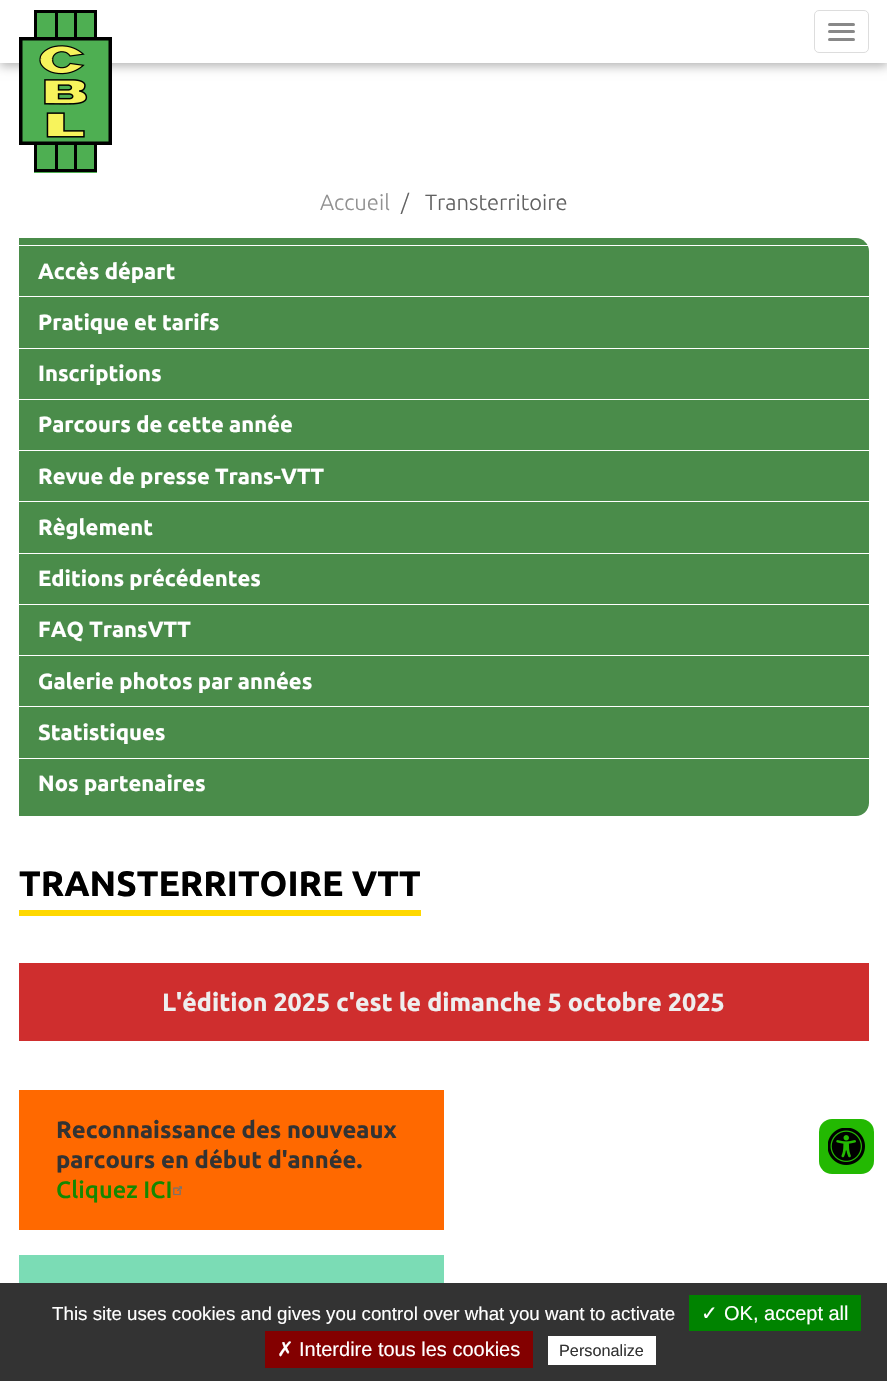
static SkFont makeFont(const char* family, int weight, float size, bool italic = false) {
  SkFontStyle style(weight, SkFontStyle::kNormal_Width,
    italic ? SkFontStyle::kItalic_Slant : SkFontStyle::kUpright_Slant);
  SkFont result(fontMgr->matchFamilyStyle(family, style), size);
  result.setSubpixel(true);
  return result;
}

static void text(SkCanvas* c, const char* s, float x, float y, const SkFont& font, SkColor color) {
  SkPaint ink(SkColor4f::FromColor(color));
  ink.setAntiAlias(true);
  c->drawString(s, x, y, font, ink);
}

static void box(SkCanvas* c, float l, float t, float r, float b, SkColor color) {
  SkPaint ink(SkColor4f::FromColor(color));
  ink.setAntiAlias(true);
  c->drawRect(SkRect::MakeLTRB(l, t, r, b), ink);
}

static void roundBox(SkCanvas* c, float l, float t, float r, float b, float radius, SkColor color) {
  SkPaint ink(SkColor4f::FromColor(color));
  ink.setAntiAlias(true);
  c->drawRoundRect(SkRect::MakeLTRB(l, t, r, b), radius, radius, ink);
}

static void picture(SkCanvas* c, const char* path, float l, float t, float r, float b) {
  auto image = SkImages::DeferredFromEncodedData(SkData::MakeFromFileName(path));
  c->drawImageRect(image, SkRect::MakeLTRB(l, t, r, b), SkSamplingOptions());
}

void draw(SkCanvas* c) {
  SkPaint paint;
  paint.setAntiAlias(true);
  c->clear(0xffffffff);
  paint.setColor(0x4d000000);
  paint.setMaskFilter(SkMaskFilter::MakeBlur(kNormal_SkBlurStyle, 5));
  c->drawRect(SkRect::MakeLTRB(0, 4, 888, 66), paint);
  paint.setMaskFilter(nullptr);
  box(c, 0, 0, 887, 63, 0xffffffff);
  picture(c, "img_01.png", 19, 10, 112, 173);
  paint.setStyle(SkPaint::kStroke_Style);
  paint.setStrokeWidth(1);
  paint.setColor(0xffdddddd);
  c->drawRoundRect(SkRect::MakeLTRB(814.5f, 10.5f, 868.5f, 52.5f), 4.5f, 4.5f, paint);
  roundBox(c, 828, 23, 855, 26, 1.5f, 0xff888888);
  roundBox(c, 828, 30, 855, 33, 1.5f, 0xff888888);
  roundBox(c, 828, 38, 855, 41, 1.5f, 0xff888888);
  SkFont face1 = makeFont("Ubuntu", 300, 22);
  text(c, "Accueil", 320, 210, face1, 0xff919191);
  text(c, "/", 401, 210, face1, 0xff616161);
  text(c, "Transterritoire", 425, 210, face1, 0xff616161);
  paint.setStyle(SkPaint::kFill_Style);
  paint.setColor(0xff4a8c4a);
  c->drawPath(SkPathBuilder().moveTo(19, 238).lineTo(856, 238).cubicTo(863, 238, 869, 244, 869, 251).lineTo(869, 803).cubicTo(869, 810, 863, 816, 856, 816).lineTo(19, 816).close().detach(), paint);
  box(c, 19, 245, 869, 246, 0xffffffff);
  SkFont face2 = makeFont("Ubuntu", 700, 22);
  text(c, "Accès départ", 38, 279, face2, 0xffffffff);
  box(c, 19, 296, 869, 297, 0xffffffff);
  text(c, "Pratique et tarifs", 38, 330, face2, 0xffffffff);
  box(c, 19, 348, 869, 349, 0xffffffff);
  text(c, "Inscriptions", 38, 381, face2, 0xffffffff);
  box(c, 19, 399, 869, 400, 0xffffffff);
  text(c, "Parcours de cette année", 38, 432, face2, 0xffffffff);
  box(c, 19, 450, 869, 451, 0xffffffff);
  text(c, "Revue de presse Trans-VTT", 38, 484, face2, 0xffffffff);
  box(c, 19, 501, 869, 502, 0xffffffff);
  text(c, "Règlement", 38, 535, face2, 0xffffffff);
  box(c, 19, 553, 869, 554, 0xffffffff);
  text(c, "Editions précédentes", 38, 586, face2, 0xffffffff);
  box(c, 19, 604, 869, 605, 0xffffffff);
  text(c, "FAQ TransVTT", 38, 637, face2, 0xffffffff);
  box(c, 19, 655, 869, 656, 0xffffffff);
  text(c, "Galerie photos par années", 38, 689, face2, 0xffffffff);
  box(c, 19, 706, 869, 707, 0xffffffff);
  text(c, "Statistiques", 38, 740, face2, 0xffffffff);
  box(c, 19, 758, 869, 759, 0xffffffff);
  text(c, "Nos partenaires", 38, 791, face2, 0xffffffff);
  box(c, 19, 910, 421, 916, 0xffffd800);
  SkFont face3 = makeFont("Ubuntu", 700, 35.25f);
  text(c, "TRANSTERRITOIRE VTT", 19, 896, face3, 0xff000000);
  box(c, 19, 963, 869, 1041, 0xffcf2e2e);
  SkFont face4 = makeFont("Ubuntu", 700, 25);
  text(c, "L'édition 2025 c'est le dimanche 5 octobre 2025", 162, 1011, face4, 0xffeeeeee);
  box(c, 19, 1090, 444, 1230, 0xffff6900);
  SkFont face5 = makeFont("Ubuntu", 700, 23.75f);
  text(c, "Reconnaissance des nouveaux", 56, 1138, face5, 0xff333333);
  text(c, "parcours en début d'année.", 56, 1168, face5, 0xff333333);
  SkFont face6 = makeFont("Ubuntu", 500, 23.75f);
  text(c, "Cliquez ICI", 56, 1198, face6, 0xff148800);
  picture(c, "img_02.png", 173, 1186, 182, 1196);
  box(c, 19, 1255, 444, 1283, 0xff7bdcb5);
  roundBox(c, 819, 1119, 874, 1174, 13, 0xff23b902);
  picture(c, "img_03.png", 828, 1128, 865, 1165);
  box(c, 0, 1283, 887, 1381, 0xff333333);
  SkFont face7 = makeFont("Liberation Sans", 400, 18.75f);
  text(c, "This site uses cookies and gives you control over what you want to activate", 52, 1320, face7, 0xffffffff);
  box(c, 689, 1295, 861, 1331, 0xff008300);
  SkFont face8 = makeFont("DejaVu Sans", 400, 20);
  text(c, "✓", 701, 1320, face8, 0xffffffff);
  SkFont face9 = makeFont("Liberation Sans", 400, 20);
  text(c, "OK, accept all", 724, 1320, face9, 0xffffffff);
  box(c, 265, 1331, 533, 1368, 0xff830000);
  text(c, "✗", 277, 1356, face8, 0xffffffff);
  text(c, "Interdire tous les cookies", 299, 1356, face9, 0xffffffff);
  box(c, 548, 1336, 656, 1365, 0xffffffff);
  SkFont face10 = makeFont("Liberation Sans", 400, 16.25f);
  text(c, "Personalize", 559, 1356, face10, 0xff333333);
}
